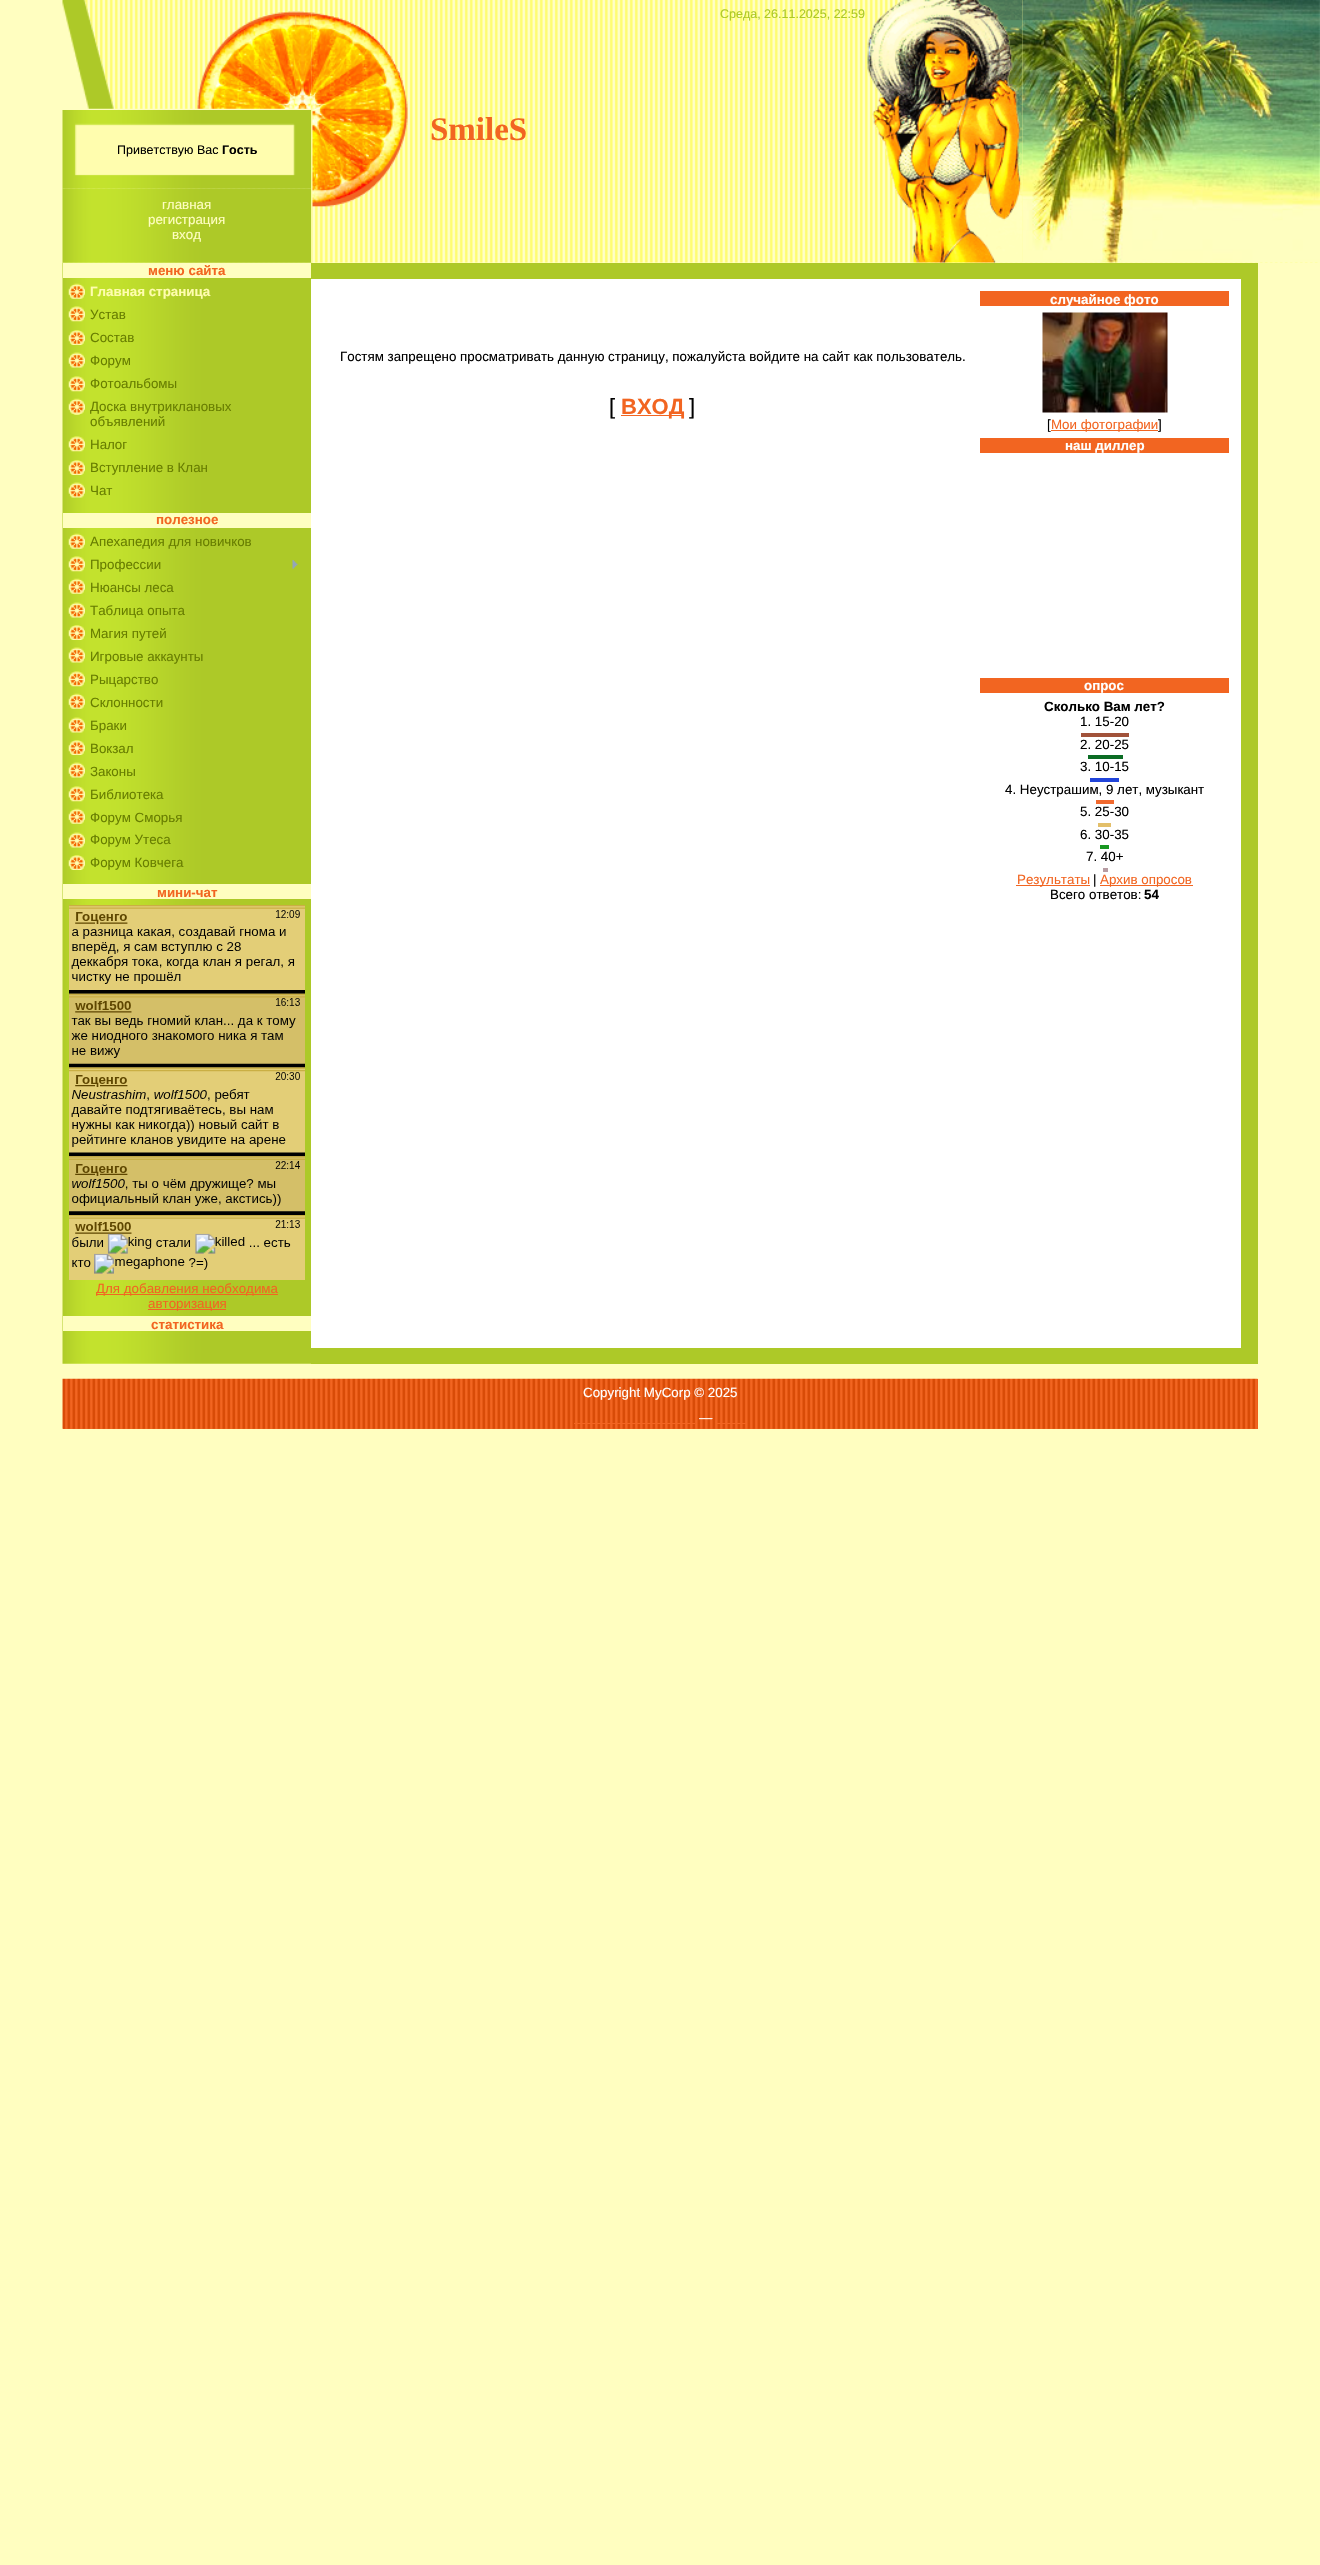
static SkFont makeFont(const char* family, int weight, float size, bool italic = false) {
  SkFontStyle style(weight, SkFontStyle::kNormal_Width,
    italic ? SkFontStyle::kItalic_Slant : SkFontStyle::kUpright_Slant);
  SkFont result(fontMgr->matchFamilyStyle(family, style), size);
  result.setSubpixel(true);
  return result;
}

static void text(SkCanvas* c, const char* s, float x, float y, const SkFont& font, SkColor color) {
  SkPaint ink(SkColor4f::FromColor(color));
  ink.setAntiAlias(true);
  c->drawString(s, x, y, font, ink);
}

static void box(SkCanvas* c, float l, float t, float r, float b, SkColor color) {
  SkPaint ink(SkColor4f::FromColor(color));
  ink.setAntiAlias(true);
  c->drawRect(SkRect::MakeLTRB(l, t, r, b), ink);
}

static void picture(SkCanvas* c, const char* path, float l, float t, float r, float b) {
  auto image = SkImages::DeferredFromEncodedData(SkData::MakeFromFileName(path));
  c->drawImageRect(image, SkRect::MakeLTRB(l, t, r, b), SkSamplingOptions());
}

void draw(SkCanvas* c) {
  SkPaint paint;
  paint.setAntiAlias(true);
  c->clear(0xfffffec0);
  picture(c, "img_01.png", 63, 0, 1319, 263);
  picture(c, "img_02.png", 62, 0, 312, 110);
  picture(c, "img_06.png", 62, 110, 312, 189);
  picture(c, "img_07.png", 62, 188, 312, 263);
  picture(c, "img_08.png", 62, 262, 312, 1364);
  picture(c, "img_03.png", 311, 12, 408, 263);
  SkFont face1 = makeFont("Liberation Sans", 400, 12.5f);
  text(c, "Среда, 26.11.2025, 22:59", 720, 18, face1, 0xffadc928);
  picture(c, "img_04.png", 867, 0, 1023, 263);
  picture(c, "img_05.png", 1022, 0, 1320, 263);
  SkFont face2 = makeFont("Liberation Serif", 700, 33);
  text(c, "SmileS", 430, 140, face2, 0xfff26521);
  text(c, "Приветствую Вас", 117, 154, face1, 0xff000000);
  SkFont face3 = makeFont("Liberation Sans", 700, 12.5f);
  text(c, "Гость", 222, 154, face3, 0xff000000);
  SkFont face4 = makeFont("Liberation Sans", 400, 13.35f);
  text(c, "главная", 162, 209, face4, 0xfffffec0);
  text(c, "регистрация", 148, 224, face4, 0xfffffec0);
  text(c, "вход", 172, 239, face4, 0xfffffec0);
  box(c, 63, 263, 311, 278, 0xfffffec0);
  SkFont face5 = makeFont("Liberation Sans", 700, 13.35f);
  text(c, "меню сайта", 148, 275, face5, 0xfff26521);
  picture(c, "img_09.png", 68, 283, 85, 299);
  text(c, "Главная страница", 90, 296, face5, 0xfffffdae);
  picture(c, "img_10.png", 68, 306, 85, 322);
  text(c, "Устав", 90, 319, face4, 0xff687e00);
  picture(c, "img_11.png", 68, 330, 85, 345);
  text(c, "Состав", 90, 342, face4, 0xff687e00);
  picture(c, "img_12.png", 68, 352, 85, 368);
  text(c, "Форум", 90, 365, face4, 0xff687e00);
  picture(c, "img_13.png", 68, 376, 85, 392);
  text(c, "Фотоальбомы", 90, 388, face4, 0xff687e00);
  picture(c, "img_14.png", 68, 398, 85, 415);
  text(c, "Доска внутриклановых", 90, 411, face4, 0xff687e00);
  text(c, "объявлений", 90, 426, face4, 0xff687e00);
  picture(c, "img_13.png", 68, 436, 85, 452);
  text(c, "Налог", 90, 449, face4, 0xff687e00);
  picture(c, "img_11.png", 68, 460, 85, 475);
  text(c, "Вступление в Клан", 90, 472, face4, 0xff687e00);
  picture(c, "img_12.png", 68, 482, 85, 498);
  text(c, "Чат", 90, 495, face4, 0xff687e00);
  box(c, 63, 513, 311, 528, 0xfffffec0);
  text(c, "полезное", 156, 524, face5, 0xfff26521);
  picture(c, "img_15.png", 68, 533, 85, 549);
  text(c, "Апехапедия для новичков", 90, 546, face4, 0xff687e00);
  picture(c, "img_13.png", 68, 556, 85, 572);
  text(c, "Профессии", 90, 569, face4, 0xff687e00);
  picture(c, "img_16.png", 292, 560, 298, 569);
  picture(c, "img_17.png", 68, 578, 85, 594);
  text(c, "Нюансы леса", 90, 592, face4, 0xff687e00);
  picture(c, "img_12.png", 68, 602, 85, 618);
  text(c, "Таблица опыта", 90, 615, face4, 0xff687e00);
  picture(c, "img_11.png", 68, 625, 85, 640);
  text(c, "Магия путей", 90, 638, face4, 0xff687e00);
  picture(c, "img_12.png", 68, 647, 85, 663);
  text(c, "Игровые аккаунты", 90, 661, face4, 0xff687e00);
  picture(c, "img_13.png", 68, 671, 85, 687);
  text(c, "Рыцарство", 90, 684, face4, 0xff687e00);
  picture(c, "img_15.png", 68, 693, 85, 709);
  text(c, "Склонности", 90, 707, face4, 0xff687e00);
  picture(c, "img_12.png", 68, 717, 85, 733);
  text(c, "Браки", 90, 730, face4, 0xff687e00);
  picture(c, "img_11.png", 68, 740, 85, 755);
  text(c, "Вокзал", 90, 753, face4, 0xff687e00);
  picture(c, "img_12.png", 68, 762, 85, 778);
  text(c, "Законы", 90, 776, face4, 0xff687e00);
  picture(c, "img_13.png", 68, 786, 85, 802);
  text(c, "Библиотека", 90, 799, face4, 0xff687e00);
  picture(c, "img_15.png", 68, 808, 85, 824);
  text(c, "Форум Сморья", 90, 822, face4, 0xff687e00);
  picture(c, "img_12.png", 68, 832, 85, 848);
  text(c, "Форум Утеса", 90, 844, face4, 0xff687e00);
  picture(c, "img_11.png", 68, 855, 85, 870);
  text(c, "Форум Ковчега", 90, 867, face4, 0xff687e00);
  box(c, 63, 884, 311, 899, 0xfffffec0);
  text(c, "мини-чат", 157, 897, face5, 0xfff26521);
  picture(c, "img_18.png", 69, 905, 305, 1280);
  box(c, 96, 1294, 278, 1295, 0xfff26521);
  text(c, "Для добавления необходима", 96, 1293, face4, 0xfff26521);
  box(c, 148, 1309, 226, 1310, 0xfff26521);
  text(c, "авторизация", 148, 1308, face4, 0xfff26521);
  box(c, 63, 1316, 311, 1331, 0xfffffec0);
  text(c, "статистика", 151, 1329, face5, 0xfff26521);
  box(c, 311, 279, 1241, 1348, 0xffffffff);
  box(c, 311, 263, 1241, 279, 0xffadc928);
  box(c, 1241, 263, 1258, 1348, 0xffadc928);
  box(c, 311, 1348, 1258, 1364, 0xffadc928);
  text(c, "Гостям запрещено просматривать данную страницу, пожалуйста войдите на сайт как пользователь.", 340, 361, face4, 0xff000000);
  SkFont face6 = makeFont("Liberation Sans", 400, 22);
  text(c, "[", 609, 414, face6, 0xff000000);
  box(c, 621, 415, 683, 416, 0xfff26521);
  SkFont face7 = makeFont("Liberation Sans", 700, 22);
  text(c, "ВХОД", 621, 414, face7, 0xfff26521);
  text(c, "]", 689, 414, face6, 0xff000000);
  box(c, 980, 291, 1229, 306, 0xfff26521);
  text(c, "случайное фото", 1050, 304, face5, 0xffffffff);
  picture(c, "img_19.png", 1042, 312, 1168, 413);
  text(c, "[", 1047, 429, face4, 0xff000000);
  box(c, 1051, 430, 1158, 431, 0xfff26521);
  text(c, "Мои фотографии", 1051, 429, face4, 0xfff26521);
  text(c, "]", 1158, 429, face4, 0xff000000);
  box(c, 980, 438, 1229, 453, 0xfff26521);
  text(c, "наш диллер", 1065, 450, face5, 0xffffffff);
  box(c, 980, 678, 1229, 693, 0xfff26521);
  text(c, "опрос", 1084, 690, face5, 0xffffffff);
  text(c, "Сколько Вам лет?", 1044, 711, face5, 0xff000000);
  text(c, "1. 15-20", 1080, 726, face4, 0xff000000);
  box(c, 1081, 733, 1129, 737, 0xffa1523a);
  text(c, "2. 20-25", 1080, 749, face4, 0xff000000);
  box(c, 1088, 755, 1123, 759, 0xff0b6c24);
  text(c, "3. 10-15", 1080, 771, face4, 0xff000000);
  box(c, 1090, 778, 1119, 782, 0xff2144da);
  text(c, "4. Неустрашим, 9 лет, музыкант", 1005, 794, face4, 0xff000000);
  box(c, 1096, 800, 1114, 804, 0xfff1692e);
  text(c, "5. 25-30", 1080, 816, face4, 0xff000000);
  box(c, 1098, 823, 1111, 827, 0xffe3bf6a);
  text(c, "6. 30-35", 1080, 839, face4, 0xff000000);
  box(c, 1100, 845, 1109, 849, 0xff189721);
  text(c, "7. 40+", 1086, 861, face4, 0xff000000);
  box(c, 1103, 868, 1108, 872, 0xffb79ca3);
  box(c, 1016, 885, 1090, 886, 0xfff26521);
  text(c, "Результаты", 1017, 884, face4, 0xfff26521);
  text(c, "|", 1093, 884, face4, 0xff000000);
  box(c, 1100, 885, 1193, 886, 0xfff26521);
  text(c, "Архив опросов", 1100, 884, face4, 0xfff26521);
  text(c, "Всего ответов:", 1050, 899, face4, 0xff000000);
  text(c, "54", 1144, 899, face5, 0xff000000);
  box(c, 63, 1379, 1258, 1429, 0xfff26521);
  picture(c, "img_20.png", 62, 1378, 1258, 1429);
  text(c, "Copyright MyCorp © 2025", 583, 1397, face4, 0xffffffff);
  text(c, "—", 699, 1422, face4, 0xffffffff);
  box(c, 574, 1423, 695, 1424, 0xfff26521);
  box(c, 716, 1423, 746, 1424, 0xfff26521);
}
